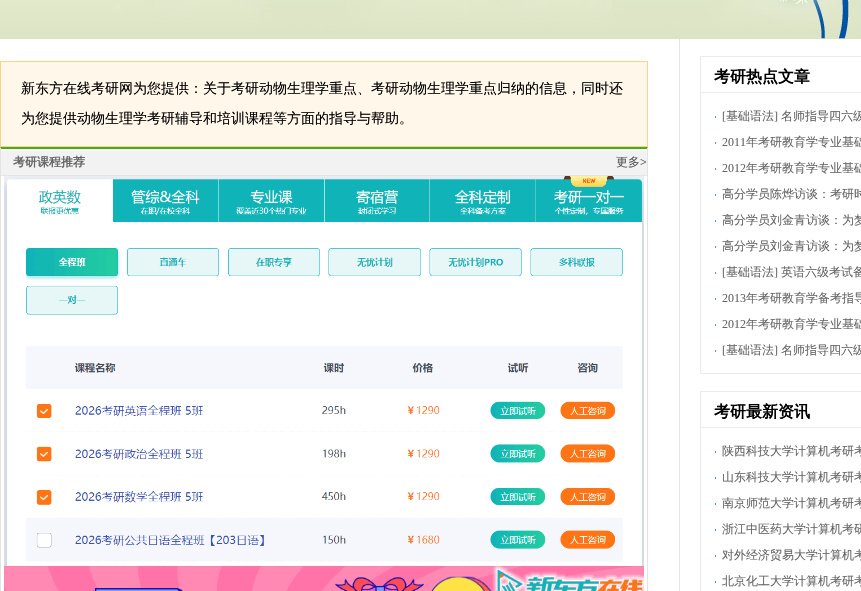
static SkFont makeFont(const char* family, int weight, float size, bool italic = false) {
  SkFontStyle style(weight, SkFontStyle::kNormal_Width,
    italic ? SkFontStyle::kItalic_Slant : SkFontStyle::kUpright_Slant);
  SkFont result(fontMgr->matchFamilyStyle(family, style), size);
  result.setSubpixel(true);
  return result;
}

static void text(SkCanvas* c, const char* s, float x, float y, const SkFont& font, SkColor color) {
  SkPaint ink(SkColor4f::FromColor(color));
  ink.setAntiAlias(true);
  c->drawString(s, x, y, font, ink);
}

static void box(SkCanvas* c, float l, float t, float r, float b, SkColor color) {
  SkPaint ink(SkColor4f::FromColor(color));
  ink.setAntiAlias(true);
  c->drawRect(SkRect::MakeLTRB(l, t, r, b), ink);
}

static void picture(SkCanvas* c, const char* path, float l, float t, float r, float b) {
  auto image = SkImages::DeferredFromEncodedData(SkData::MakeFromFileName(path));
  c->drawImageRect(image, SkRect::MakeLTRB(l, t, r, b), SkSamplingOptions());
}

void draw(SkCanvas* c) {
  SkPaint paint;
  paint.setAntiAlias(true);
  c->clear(0xffffffff);
  picture(c, "img_01.png", 0, 0, 861, 39);
  paint.setColor(0xfffff7ea);
  c->drawRect(SkRect::MakeLTRB(0.5f, 61.5f, 647.5f, 146.5f), paint);
  paint.setStyle(SkPaint::kStroke_Style);
  paint.setStrokeWidth(1);
  paint.setColor(0xfffcd289);
  c->drawRect(SkRect::MakeLTRB(0.5f, 61.5f, 647.5f, 146.5f), paint);
  SkFont face1 = makeFont("WenQuanYi Zen Hei", 500, 14);
  text(c, "新东方在线考研网为您提供：关于考研动物生理学重点、考研动物生理学重点归纳的信息，同时还", 21, 93, face1, 0xff000000);
  text(c, "为您提供动物生理学考研辅导和培训课程等方面的指导与帮助。", 21, 123, face1, 0xff000000);
  paint.setStyle(SkPaint::kFill_Style);
  paint.setColor(0xff44ae18);
  c->drawPath(SkPathBuilder().moveTo(0, 147).lineTo(648, 147).lineTo(647, 149).lineTo(1, 149).close().detach(), paint);
  paint.setColor(0xffe4e4e4);
  c->drawPath(SkPathBuilder().moveTo(648, 147).lineTo(648, 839).lineTo(647, 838).lineTo(647, 149).close().detach(), paint);
  c->drawPath(SkPathBuilder().moveTo(0, 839).lineTo(0, 147).lineTo(1, 149).lineTo(1, 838).close().detach(), paint);
  box(c, 1, 151, 647, 175, 0xfff2f2f2);
  box(c, 1, 175, 647, 176, 0xffe4e4e4);
  SkFont face2 = makeFont("WenQuanYi Zen Hei", 700, 12);
  text(c, "考研课程推荐", 13, 166, face2, 0xff656565);
  SkFont face3 = makeFont("WenQuanYi Zen Hei", 500, 12);
  text(c, "更多", 616, 166, face3, 0xff575757);
  SkFont face4 = makeFont("Liberation Serif", 400, 12);
  text(c, ">", 640, 166, face4, 0xff575757);
  picture(c, "img_02.png", 4, 176, 644, 566);
  picture(c, "img_03.png", 4, 566, 644, 591);
  box(c, 679, 39, 680, 591, 0xffe5e5e5);
  box(c, 700, 56, 861, 57, 0xffebebeb);
  box(c, 700, 56, 701, 92, 0xffebebeb);
  SkFont face5 = makeFont("WenQuanYi Zen Hei", 700, 16);
  text(c, "考研热点文章", 714, 82, face5, 0xff000000);
  paint.setStyle(SkPaint::kStroke_Style);
  paint.setColor(0xffebebeb);
  c->drawRect(SkRect::MakeLTRB(700.5f, 92.5f, 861.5f, 373.5f), paint);
  box(c, 715, 116, 716, 118, 0xff548edc);
  text(c, "[", 722, 120, face4, 0xff656565);
  text(c, "基础语法", 726, 120, face3, 0xff656565);
  text(c, "]", 774, 120, face4, 0xff656565);
  text(c, "名师指导四六级", 781, 120, face3, 0xff656565);
  box(c, 715, 142, 716, 144, 0xff548edc);
  text(c, "2011", 722, 146, face4, 0xff656565);
  text(c, "年考研教育学专业基础", 746, 146, face3, 0xff656565);
  box(c, 715, 168, 716, 170, 0xff548edc);
  text(c, "2012", 722, 172, face4, 0xff656565);
  text(c, "年考研教育学专业基础", 746, 172, face3, 0xff656565);
  box(c, 715, 194, 716, 196, 0xff548edc);
  text(c, "高分学员陈烨访谈：考研时", 722, 198, face3, 0xff656565);
  box(c, 715, 220, 716, 222, 0xff548edc);
  text(c, "高分学员刘金青访谈：为梦", 722, 224, face3, 0xff656565);
  box(c, 715, 246, 716, 248, 0xff548edc);
  text(c, "高分学员刘金青访谈：为梦", 722, 250, face3, 0xff656565);
  box(c, 715, 272, 716, 274, 0xff548edc);
  text(c, "[", 722, 276, face4, 0xff656565);
  text(c, "基础语法", 726, 276, face3, 0xff656565);
  text(c, "]", 774, 276, face4, 0xff656565);
  text(c, "英语六级考试备", 781, 276, face3, 0xff656565);
  box(c, 715, 298, 716, 300, 0xff548edc);
  text(c, "2013", 722, 302, face4, 0xff656565);
  text(c, "年考研教育学备考指导", 746, 302, face3, 0xff656565);
  box(c, 715, 324, 716, 326, 0xff548edc);
  text(c, "2012", 722, 328, face4, 0xff656565);
  text(c, "年考研教育学专业基础", 746, 328, face3, 0xff656565);
  box(c, 715, 350, 716, 352, 0xff548edc);
  text(c, "[", 722, 354, face4, 0xff656565);
  text(c, "基础语法", 726, 354, face3, 0xff656565);
  text(c, "]", 774, 354, face4, 0xff656565);
  text(c, "名师指导四六级", 781, 354, face3, 0xff656565);
  box(c, 700, 391, 861, 392, 0xffebebeb);
  box(c, 700, 391, 701, 427, 0xffebebeb);
  text(c, "考研最新资讯", 714, 417, face5, 0xff000000);
  c->drawRect(SkRect::MakeLTRB(700.5f, 427.5f, 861.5f, 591.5f), paint);
  box(c, 715, 451, 716, 453, 0xff548edc);
  text(c, "陕西科技大学计算机考研考", 722, 455, face3, 0xff656565);
  box(c, 715, 477, 716, 479, 0xff548edc);
  text(c, "山东科技大学计算机考研考", 722, 481, face3, 0xff656565);
  box(c, 715, 503, 716, 505, 0xff548edc);
  text(c, "南京师范大学计算机考研考", 722, 507, face3, 0xff656565);
  box(c, 715, 529, 716, 531, 0xff548edc);
  text(c, "浙江中医药大学计算机考研", 722, 533, face3, 0xff656565);
  box(c, 715, 555, 716, 557, 0xff548edc);
  text(c, "对外经济贸易大学计算机考", 722, 559, face3, 0xff656565);
  box(c, 715, 581, 716, 583, 0xff548edc);
  text(c, "北京化工大学计算机考研考", 722, 585, face3, 0xff656565);
}
